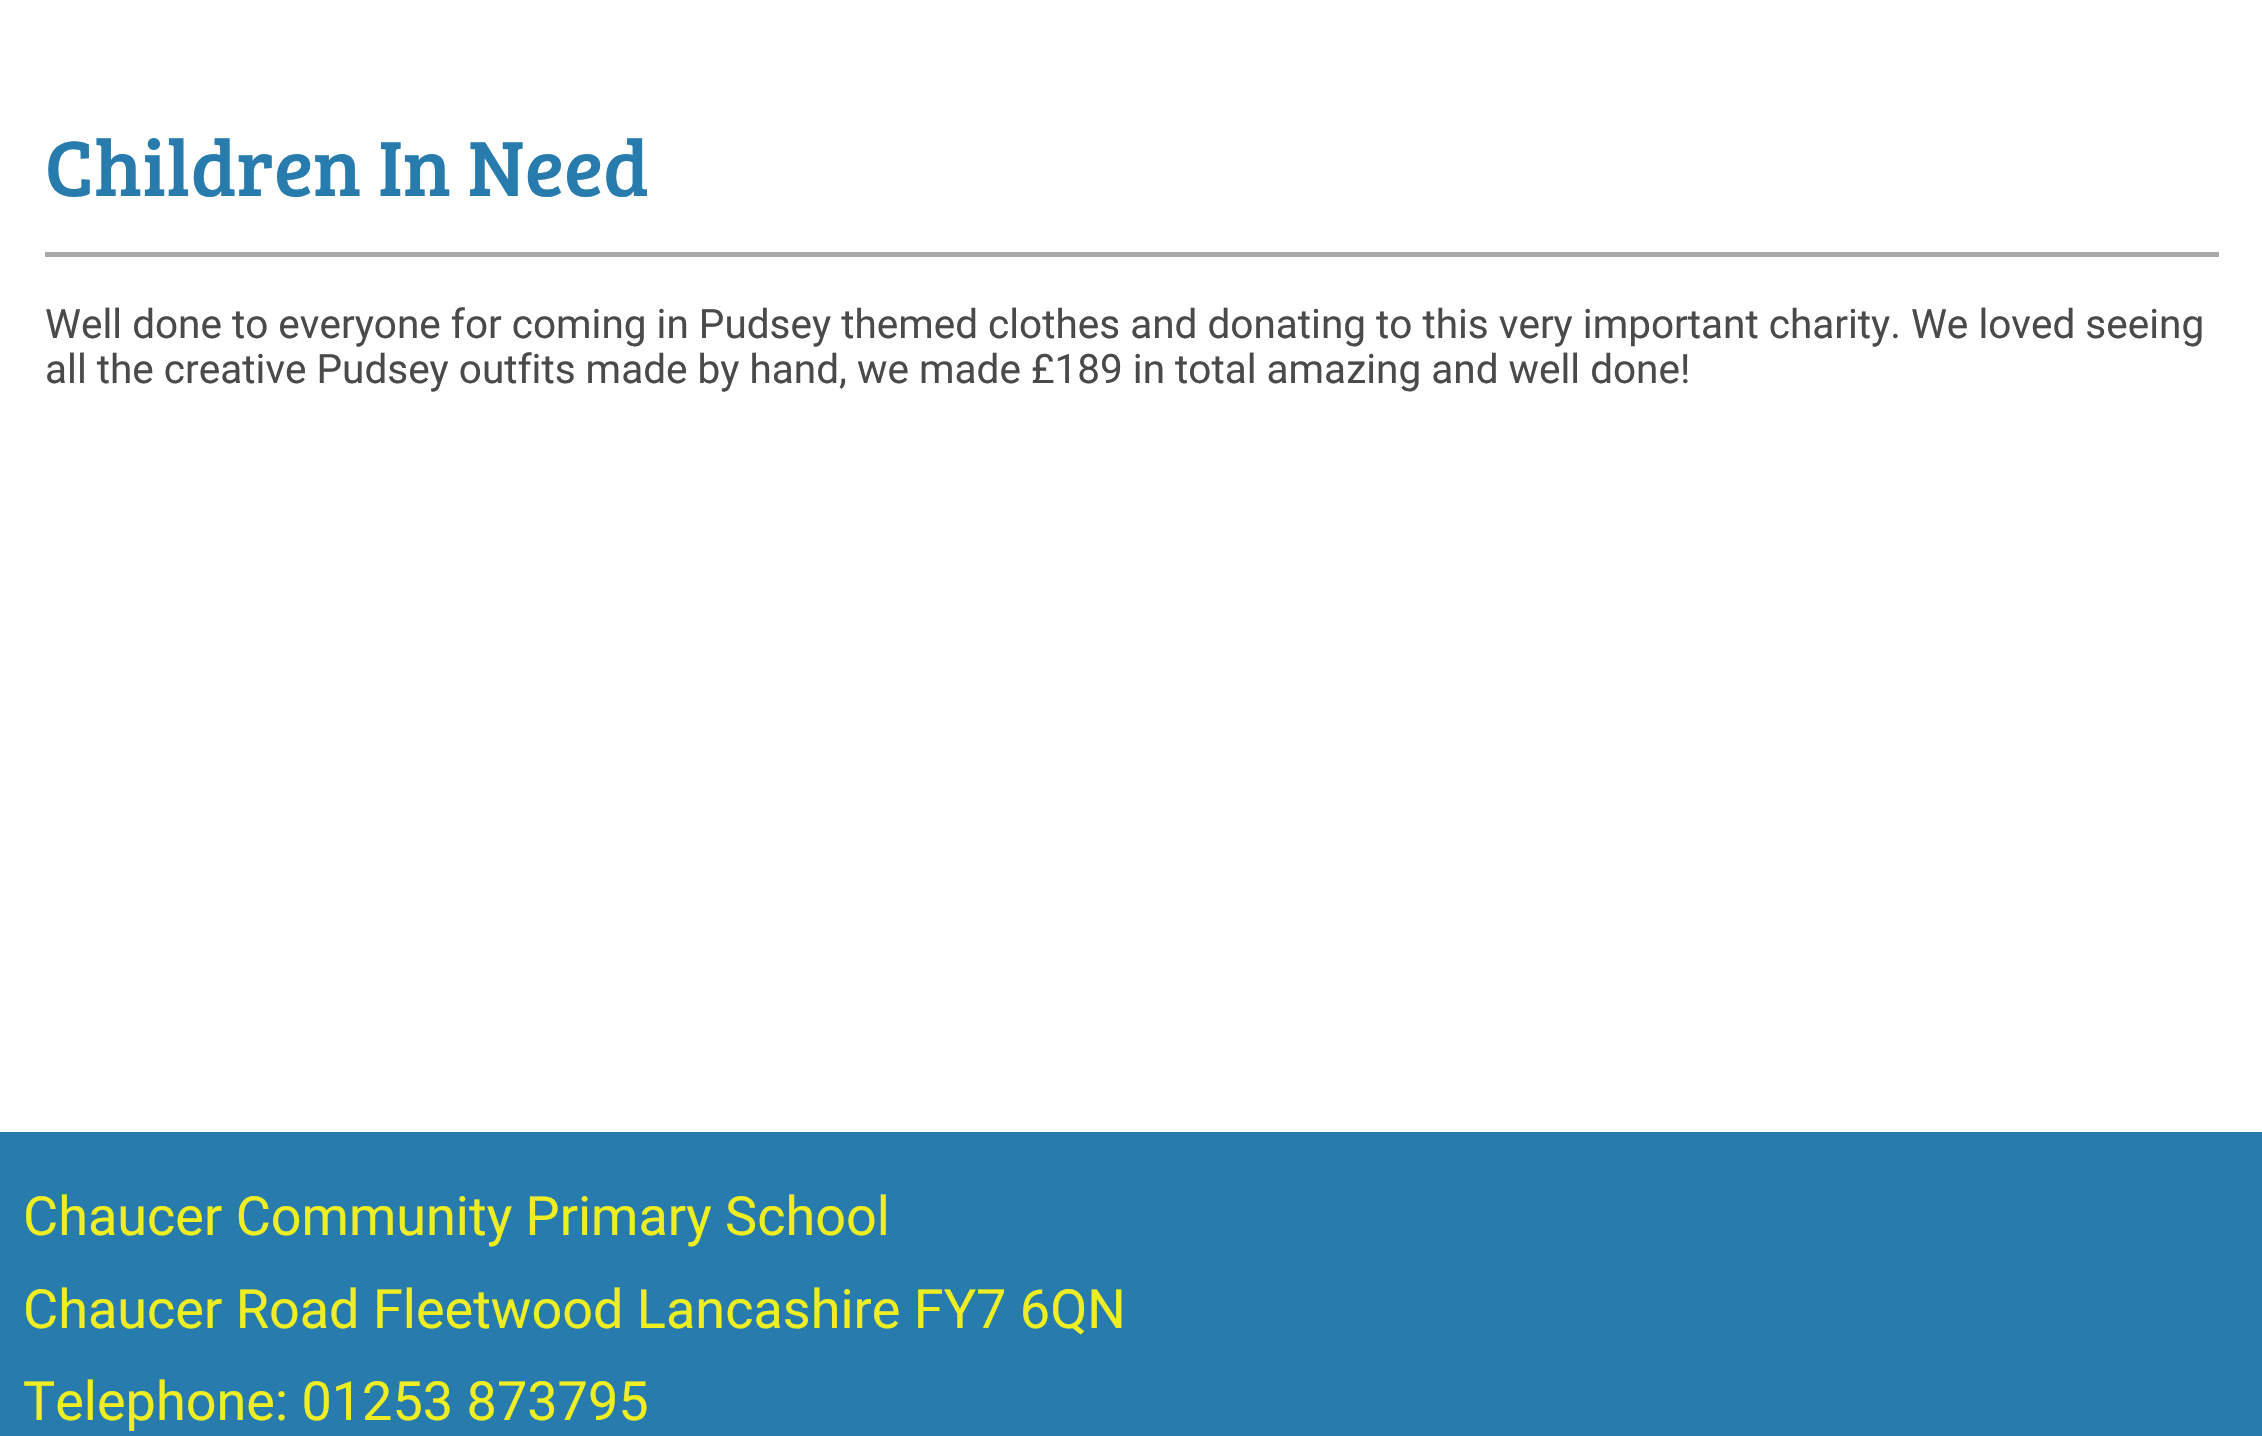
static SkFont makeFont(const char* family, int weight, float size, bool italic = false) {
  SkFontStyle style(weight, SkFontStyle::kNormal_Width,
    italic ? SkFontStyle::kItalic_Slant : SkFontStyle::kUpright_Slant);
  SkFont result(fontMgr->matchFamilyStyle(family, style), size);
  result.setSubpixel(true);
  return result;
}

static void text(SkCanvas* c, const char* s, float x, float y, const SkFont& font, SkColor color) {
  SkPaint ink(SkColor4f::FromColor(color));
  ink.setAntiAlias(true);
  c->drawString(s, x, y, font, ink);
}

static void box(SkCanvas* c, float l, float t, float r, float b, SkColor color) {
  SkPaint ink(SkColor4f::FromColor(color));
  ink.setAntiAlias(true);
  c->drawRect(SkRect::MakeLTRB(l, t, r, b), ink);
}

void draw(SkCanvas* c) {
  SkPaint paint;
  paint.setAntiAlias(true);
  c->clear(0xffffffff);
  box(c, 45, 252, 2219, 257, 0xffaaa9a9);
  SkFont face1 = makeFont("Bree Serif", 400, 81);
  text(c, "Children In Need", 45, 196, face1, 0xff277cad);
  SkFont face2 = makeFont("Roboto", 400, 40.5f);
  text(c, "Well done to everyone for coming in Pudsey themed clothes and donating to this very important charity. We loved seeing", 45, 338, face2, 0xff4b4949);
  text(c, "all the creative Pudsey outfits made by hand, we made £189 in total amazing and well done!", 45, 383, face2, 0xff4b4949);
  box(c, 0, 1132, 2262, 1436, 0xff277cad);
  SkFont face3 = makeFont("Roboto", 400, 54);
  text(c, "Chaucer Community Primary School", 23, 1235, face3, 0xffeeee22);
  text(c, "Chaucer Road Fleetwood Lancashire FY7 6QN", 23, 1328, face3, 0xffeeee22);
  text(c, "Telephone: 01253 873795", 23, 1420, face3, 0xffeeee22);
}
